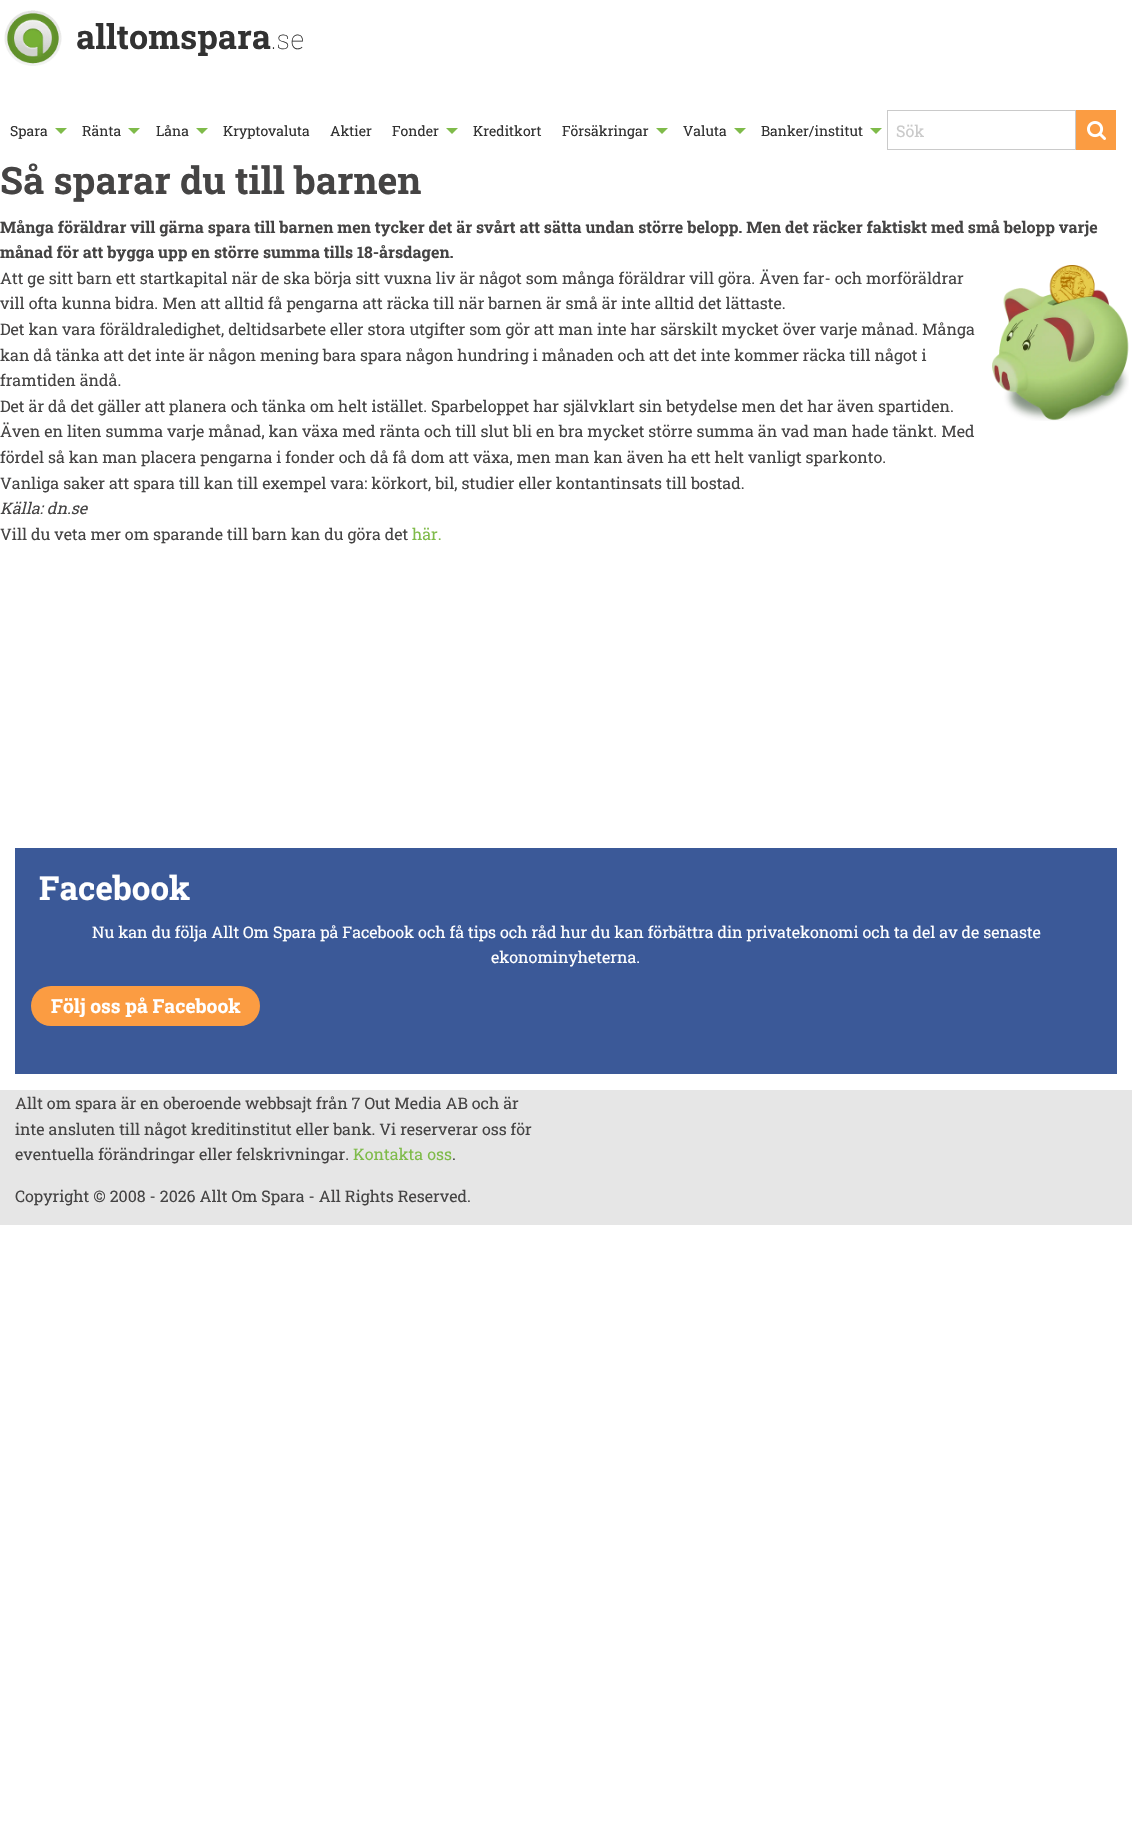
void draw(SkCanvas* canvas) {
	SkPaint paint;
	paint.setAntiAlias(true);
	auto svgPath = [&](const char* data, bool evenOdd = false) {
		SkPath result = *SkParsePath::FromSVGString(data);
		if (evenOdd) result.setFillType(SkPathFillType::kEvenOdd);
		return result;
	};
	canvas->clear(0xffffffff);
	canvas->drawImageRect(SkImages::DeferredFromEncodedData(SkData::MakeFromFileName("img1.png")), SkRect::MakeXYWH(4, 10, 58, 56), SkSamplingOptions());
	SkFont f1(fontMgr->matchFamilyStyle("Roboto Slab", SkFontStyle::Bold()), 34);
	f1.setSubpixel(true);
	paint.setColor(0xff323232);
	canvas->drawString("alltomspara", 76, 49, f1, paint);
	SkFont f2(fontMgr->matchFamilyStyle("Roboto Slab", SkFontStyle(100, SkFontStyle::kNormal_Width, SkFontStyle::kUpright_Slant)), 27);
	f2.setSubpixel(true);
	canvas->drawString(".se", 271, 49, f2, paint);
	SkFont f3(fontMgr->matchFamilyStyle("Roboto Slab", SkFontStyle::Normal()), 14);
	f3.setSubpixel(true);
	canvas->drawString("Spara", 10, 136, f3, paint);
	paint.setColor(0xff7fbb4a);
	canvas->drawPath(svgPath("M55 128H67L61 134Z"), paint);
	paint.setColor(0xff323232);
	canvas->drawString("Ränta", 82, 136, f3, paint);
	paint.setColor(0xff7fbb4a);
	canvas->drawPath(svgPath("M128 128H140L134 134Z"), paint);
	paint.setColor(0xff323232);
	canvas->drawString("Låna", 156, 136, f3, paint);
	paint.setColor(0xff7fbb4a);
	canvas->drawPath(svgPath("M196 128H208L202 134Z"), paint);
	paint.setColor(0xff323232);
	canvas->drawString("Kryptovaluta", 223, 136, f3, paint);
	canvas->drawString("Aktier", 330, 136, f3, paint);
	canvas->drawString("Fonder", 392, 136, f3, paint);
	paint.setColor(0xff7fbb4a);
	canvas->drawPath(svgPath("M446 128H458L452 134Z"), paint);
	paint.setColor(0xff323232);
	canvas->drawString("Kreditkort", 473, 136, f3, paint);
	canvas->drawString("Försäkringar", 562, 136, f3, paint);
	paint.setColor(0xff7fbb4a);
	canvas->drawPath(svgPath("M656 128H668L662 134Z"), paint);
	paint.setColor(0xff323232);
	canvas->drawString("Valuta", 683, 136, f3, paint);
	paint.setColor(0xff7fbb4a);
	canvas->drawPath(svgPath("M734 128H746L740 134Z"), paint);
	paint.setColor(0xff323232);
	canvas->drawString("Banker/institut", 761, 136, f3, paint);
	paint.setColor(0xff7fbb4a);
	canvas->drawPath(svgPath("M870 128H882L876 134Z"), paint);
	paint.setStroke(true);
	paint.setStrokeWidth(1);
	paint.setColor(0xffcacaca);
	canvas->drawRect(SkRect::MakeXYWH(887.5, 110.5, 188, 39), paint);
	SkFont f4(fontMgr->matchFamilyStyle("Roboto Slab", SkFontStyle::Normal()), 16);
	f4.setSubpixel(true);
	paint.setStroke(false);
	canvas->drawString("Sök", 896, 137, f4, paint);
	paint.setColor(0xfffb9c42);
	canvas->drawRect(SkRect::MakeXYWH(1076, 110, 40, 40), paint);
	canvas->drawImageRect(SkImages::DeferredFromEncodedData(SkData::MakeFromFileName("img2.png")), SkRect::MakeXYWH(1087, 121, 19, 19), SkSamplingOptions());
	SkFont f5(fontMgr->matchFamilyStyle("Roboto Slab", SkFontStyle::Bold()), 37.75);
	f5.setSubpixel(true);
	paint.setColor(0xff454444);
	canvas->drawString("Så sparar du till barnen", 0, 194, f5, paint);
	SkFont f6(fontMgr->matchFamilyStyle("Roboto Slab", SkFontStyle::Bold()), 16);
	f6.setSubpixel(true);
	canvas->drawString("Många föräldrar vill gärna spara till barnen men tycker det är svårt att sätta undan större belopp. Men det räcker faktiskt med små belopp varje", 0, 233, f6, paint);
	canvas->drawString("månad för att bygga upp en större summa tills 18-årsdagen.", 0, 258, f6, paint);
	canvas->drawString("Att ge sitt barn ett startkapital när de ska börja sitt vuxna liv är något som många föräldrar vill göra. Även far- och morföräldrar", 0, 284, f4, paint);
	canvas->drawImageRect(SkImages::DeferredFromEncodedData(SkData::MakeFromFileName("img3.png")), SkRect::MakeXYWH(992, 265, 137, 156), SkSamplingOptions());
	canvas->drawString("vill ofta kunna bidra. Men att alltid få pengarna att räcka till när barnen är små är inte alltid det lättaste.", 0, 309, f4, paint);
	canvas->drawString("Det kan vara föräldraledighet, deltidsarbete eller stora utgifter som gör att man inte har särskilt mycket över varje månad. Många", 0, 335, f4, paint);
	canvas->drawString("kan då tänka att det inte är någon mening bara spara någon hundring i månaden och att det inte kommer räcka till något i", 0, 361, f4, paint);
	canvas->drawString("framtiden ändå.", 0, 386, f4, paint);
	canvas->drawString("Det är då det gäller att planera och tänka om helt istället. Sparbeloppet har självklart sin betydelse men det har även spartiden.", 0, 412, f4, paint);
	canvas->drawString("Även en liten summa varje månad, kan växa med ränta och till slut bli en bra mycket större summa än vad man hade tänkt. Med", 0, 437, f4, paint);
	canvas->drawString("fördel så kan man placera pengarna i fonder och då få dom att växa, men man kan även ha ett helt vanligt sparkonto.", 0, 463, f4, paint);
	canvas->drawString("Vanliga saker att spara till kan till exempel vara: körkort, bil, studier eller kontantinsats till bostad.", 0, 489, f4, paint);
	SkFont f7(fontMgr->matchFamilyStyle("Roboto Slab", SkFontStyle::Italic()), 16);
	f7.setSubpixel(true);
	canvas->drawString("Källa: dn.se", 0, 514, f7, paint);
	canvas->drawString("Vill du veta mer om sparande till barn kan du göra det", 0, 540, f4, paint);
	paint.setColor(0xff7fbb4a);
	canvas->drawString("här.", 412, 540, f4, paint);
	paint.setColor(0xff3b5998);
	canvas->drawRect(SkRect::MakeXYWH(15, 848, 1102, 226), paint);
	SkFont f8(fontMgr->matchFamilyStyle("Roboto Slab", SkFontStyle::Bold()), 33);
	f8.setSubpixel(true);
	paint.setColor(0xffffffff);
	canvas->drawString("Facebook", 39, 900, f8, paint);
	canvas->drawString("Nu kan du följa Allt Om Spara på Facebook och få tips och råd hur du kan förbättra din privatekonomi och ta del av de senaste", 92, 938, f4, paint);
	canvas->drawString("ekonominyheterna.", 491, 963, f4, paint);
	paint.setColor(0xfffb9c42);
	canvas->drawRoundRect(SkRect::MakeXYWH(31, 986, 229, 40), 20, 20, paint);
	SkFont f9(fontMgr->matchFamilyStyle("Roboto Slab", SkFontStyle::Bold()), 19.25);
	f9.setSubpixel(true);
	paint.setColor(0xffffffff);
	canvas->drawString("Följ oss på Facebook", 51, 1013, f9, paint);
	paint.setColor(0xffe6e6e6);
	canvas->drawRect(SkRect::MakeXYWH(0, 1090, 1132, 135), paint);
	paint.setColor(0xff454444);
	canvas->drawString("Allt om spara är en oberoende webbsajt från 7 Out Media AB och är", 15, 1109, f4, paint);
	canvas->drawString("inte ansluten till något kreditinstitut eller bank. Vi reserverar oss för", 15, 1135, f4, paint);
	canvas->drawString("eventuella förändringar eller felskrivningar.", 15, 1160, f4, paint);
	paint.setColor(0xff7fbb4a);
	canvas->drawString("Kontakta oss", 353, 1160, f4, paint);
	paint.setColor(0xff454444);
	canvas->drawString(".", 452, 1160, f4, paint);
	canvas->drawString("Copyright © 2008 - 2026 Allt Om Spara - All Rights Reserved.", 15, 1202, f4, paint);
}
